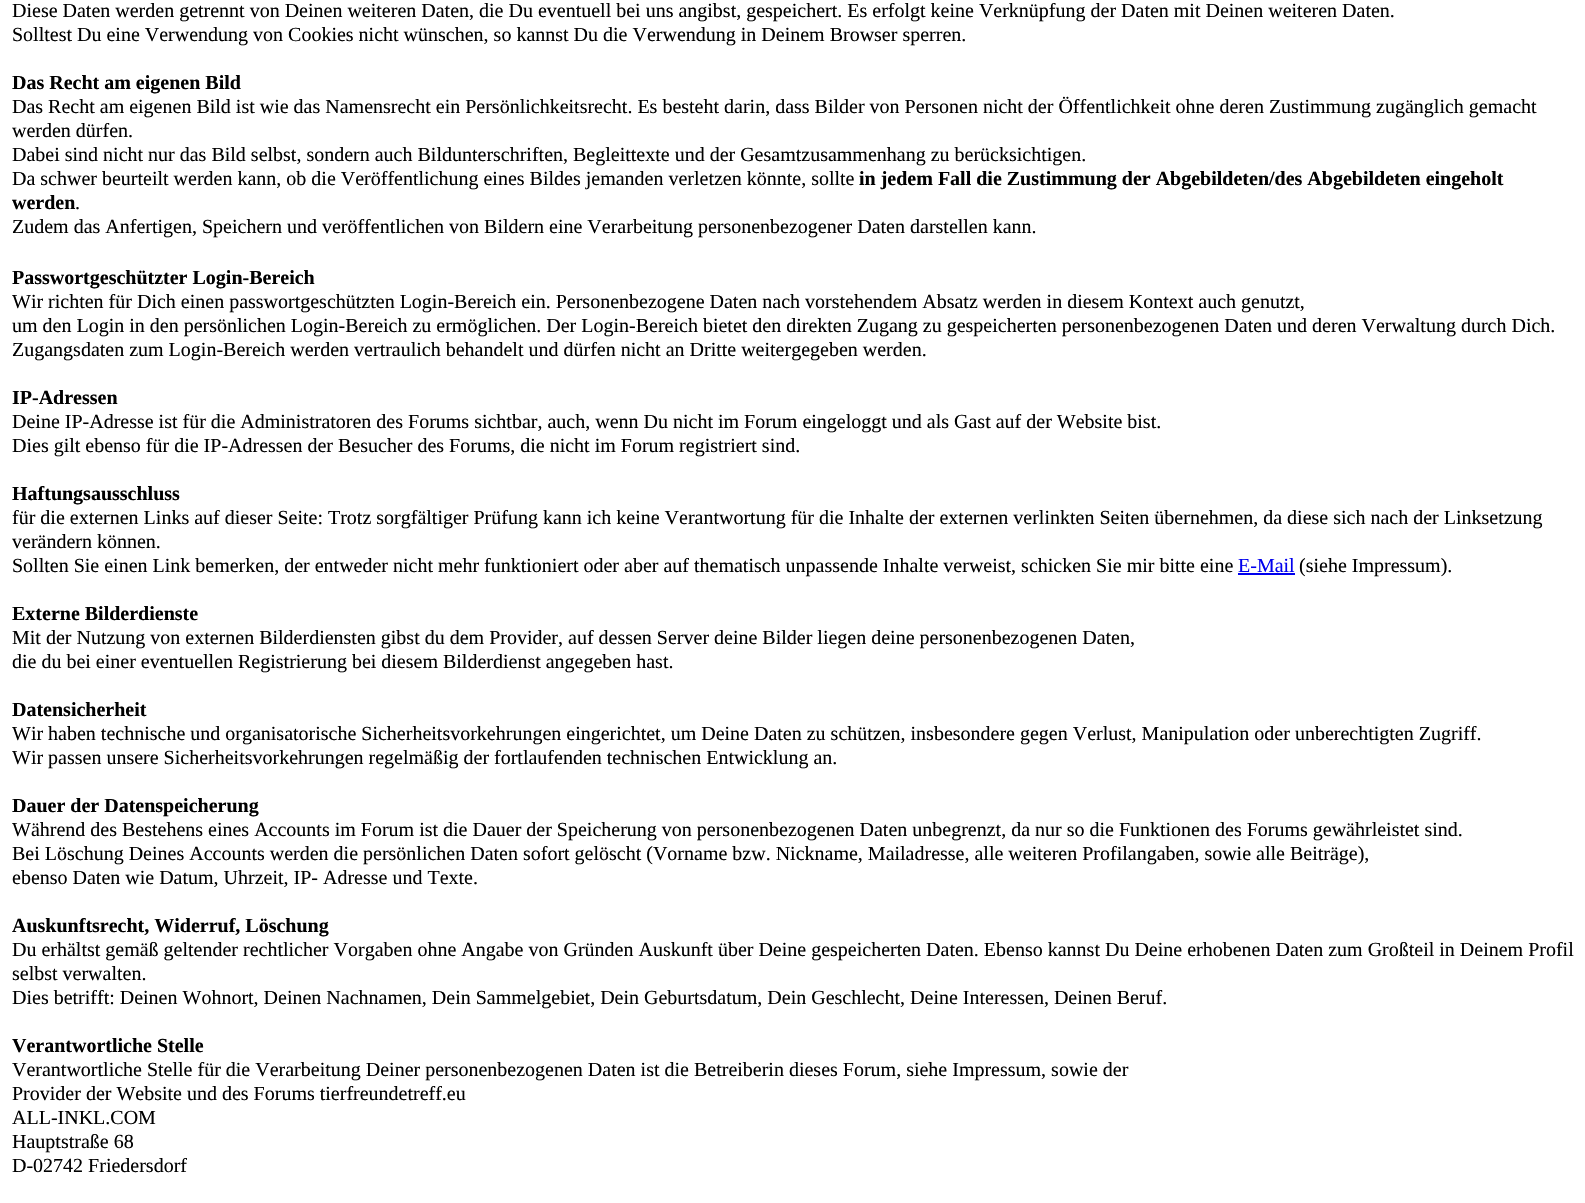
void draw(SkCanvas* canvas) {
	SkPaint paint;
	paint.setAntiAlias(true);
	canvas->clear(0xffffffff);
	SkFont f1(fontMgr->matchFamilyStyle("Liberation Serif", SkFontStyle::Normal()), 20);
	f1.setSubpixel(true);
	paint.setColor(0xff000000);
	canvas->drawString("Diese Daten werden getrennt von Deinen weiteren Daten, die Du eventuell bei uns angibst, gespeichert. Es erfolgt keine Verknüpfung der Daten mit Deinen weiteren Daten.", 12, 17, f1, paint);
	canvas->drawString("Solltest Du eine Verwendung von Cookies nicht wünschen, so kannst Du die Verwendung in Deinem Browser sperren.", 12, 41, f1, paint);
	SkFont f2(fontMgr->matchFamilyStyle("Liberation Serif", SkFontStyle::Bold()), 20);
	f2.setSubpixel(true);
	canvas->drawString("Das Recht am eigenen Bild", 12, 89, f2, paint);
	canvas->drawString("Das Recht am eigenen Bild ist wie das Namensrecht ein Persönlichkeitsrecht. Es besteht darin, dass Bilder von Personen nicht der Öffentlichkeit ohne deren Zustimmung zugänglich gemacht", 12, 113, f1, paint);
	canvas->drawString("werden dürfen.", 12, 137, f1, paint);
	canvas->drawString("Dabei sind nicht nur das Bild selbst, sondern auch Bildunterschriften, Begleittexte und der Gesamtzusammenhang zu berücksichtigen.", 12, 161, f1, paint);
	canvas->drawString("Da schwer beurteilt werden kann, ob die Veröffentlichung eines Bildes jemanden verletzen könnte, sollte", 12, 185, f1, paint);
	canvas->drawString("in jedem Fall die Zustimmung der Abgebildeten/des Abgebildeten eingeholt", 859, 185, f2, paint);
	canvas->drawString("werden", 12, 209, f2, paint);
	canvas->drawString(".", 75, 209, f1, paint);
	canvas->drawString("Zudem das Anfertigen, Speichern und veröffentlichen von Bildern eine Verarbeitung personenbezogener Daten darstellen kann.", 12, 233, f1, paint);
	canvas->drawString("Passwortgeschützter Login-Bereich", 12, 284, f2, paint);
	canvas->drawString("Wir richten für Dich einen passwortgeschützten Login-Bereich ein. Personenbezogene Daten nach vorstehendem Absatz werden in diesem Kontext auch genutzt,", 12, 308, f1, paint);
	canvas->drawString("um den Login in den persönlichen Login-Bereich zu ermöglichen. Der Login-Bereich bietet den direkten Zugang zu gespeicherten personenbezogenen Daten und deren Verwaltung durch Dich.", 12, 332, f1, paint);
	canvas->drawString("Zugangsdaten zum Login-Bereich werden vertraulich behandelt und dürfen nicht an Dritte weitergegeben werden.", 12, 356, f1, paint);
	canvas->drawString("IP-Adressen", 12, 404, f2, paint);
	canvas->drawString("Deine IP-Adresse ist für die Administratoren des Forums sichtbar, auch, wenn Du nicht im Forum eingeloggt und als Gast auf der Website bist.", 12, 428, f1, paint);
	canvas->drawString("Dies gilt ebenso für die IP-Adressen der Besucher des Forums, die nicht im Forum registriert sind.", 12, 452, f1, paint);
	canvas->drawString("Haftungsausschluss", 12, 500, f2, paint);
	canvas->drawString("für die externen Links auf dieser Seite: Trotz sorgfältiger Prüfung kann ich keine Verantwortung für die Inhalte der externen verlinkten Seiten übernehmen, da diese sich nach der Linksetzung", 12, 524, f1, paint);
	canvas->drawString("verändern können.", 12, 548, f1, paint);
	canvas->drawString("Sollten Sie einen Link bemerken, der entweder nicht mehr funktioniert oder aber auf thematisch unpassende Inhalte verweist, schicken Sie mir bitte eine", 12, 572, f1, paint);
	paint.setColor(0xff0000ee);
	canvas->drawString("E-Mail", 1238, 572, f1, paint);
	canvas->drawRect(SkRect::MakeXYWH(1238, 573, 57, 2), paint);
	paint.setColor(0xff000000);
	canvas->drawString("(siehe Impressum).", 1299, 572, f1, paint);
	canvas->drawString("Externe Bilderdienste", 12, 620, f2, paint);
	canvas->drawString("Mit der Nutzung von externen Bilderdiensten gibst du dem Provider, auf dessen Server deine Bilder liegen deine personenbezogenen Daten,", 12, 644, f1, paint);
	canvas->drawString("die du bei einer eventuellen Registrierung bei diesem Bilderdienst angegeben hast.", 12, 668, f1, paint);
	canvas->drawString("Datensicherheit", 12, 716, f2, paint);
	canvas->drawString("Wir haben technische und organisatorische Sicherheitsvorkehrungen eingerichtet, um Deine Daten zu schützen, insbesondere gegen Verlust, Manipulation oder unberechtigten Zugriff.", 12, 740, f1, paint);
	canvas->drawString("Wir passen unsere Sicherheitsvorkehrungen regelmäßig der fortlaufenden technischen Entwicklung an.", 12, 764, f1, paint);
	canvas->drawString("Dauer der Datenspeicherung", 12, 812, f2, paint);
	canvas->drawString("Während des Bestehens eines Accounts im Forum ist die Dauer der Speicherung von personenbezogenen Daten unbegrenzt, da nur so die Funktionen des Forums gewährleistet sind.", 12, 836, f1, paint);
	canvas->drawString("Bei Löschung Deines Accounts werden die persönlichen Daten sofort gelöscht (Vorname bzw. Nickname, Mailadresse, alle weiteren Profilangaben, sowie alle Beiträge),", 12, 860, f1, paint);
	canvas->drawString("ebenso Daten wie Datum, Uhrzeit, IP- Adresse und Texte.", 12, 884, f1, paint);
	canvas->drawString("Auskunftsrecht, Widerruf, Löschung", 12, 932, f2, paint);
	canvas->drawString("Du erhältst gemäß geltender rechtlicher Vorgaben ohne Angabe von Gründen Auskunft über Deine gespeicherten Daten. Ebenso kannst Du Deine erhobenen Daten zum Großteil in Deinem Profil", 12, 956, f1, paint);
	canvas->drawString("selbst verwalten.", 12, 980, f1, paint);
	canvas->drawString("Dies betrifft: Deinen Wohnort, Deinen Nachnamen, Dein Sammelgebiet, Dein Geburtsdatum, Dein Geschlecht, Deine Interessen, Deinen Beruf.", 12, 1004, f1, paint);
	canvas->drawString("Verantwortliche Stelle", 12, 1052, f2, paint);
	canvas->drawString("Verantwortliche Stelle für die Verarbeitung Deiner personenbezogenen Daten ist die Betreiberin dieses Forum, siehe Impressum, sowie der", 12, 1076, f1, paint);
	canvas->drawString("Provider der Website und des Forums tierfreundetreff.eu", 12, 1100, f1, paint);
	canvas->drawString("ALL-INKL.COM", 12, 1124, f1, paint);
	canvas->drawString("Hauptstraße 68", 12, 1148, f1, paint);
	canvas->drawString("D-02742 Friedersdorf", 12, 1172, f1, paint);
}
